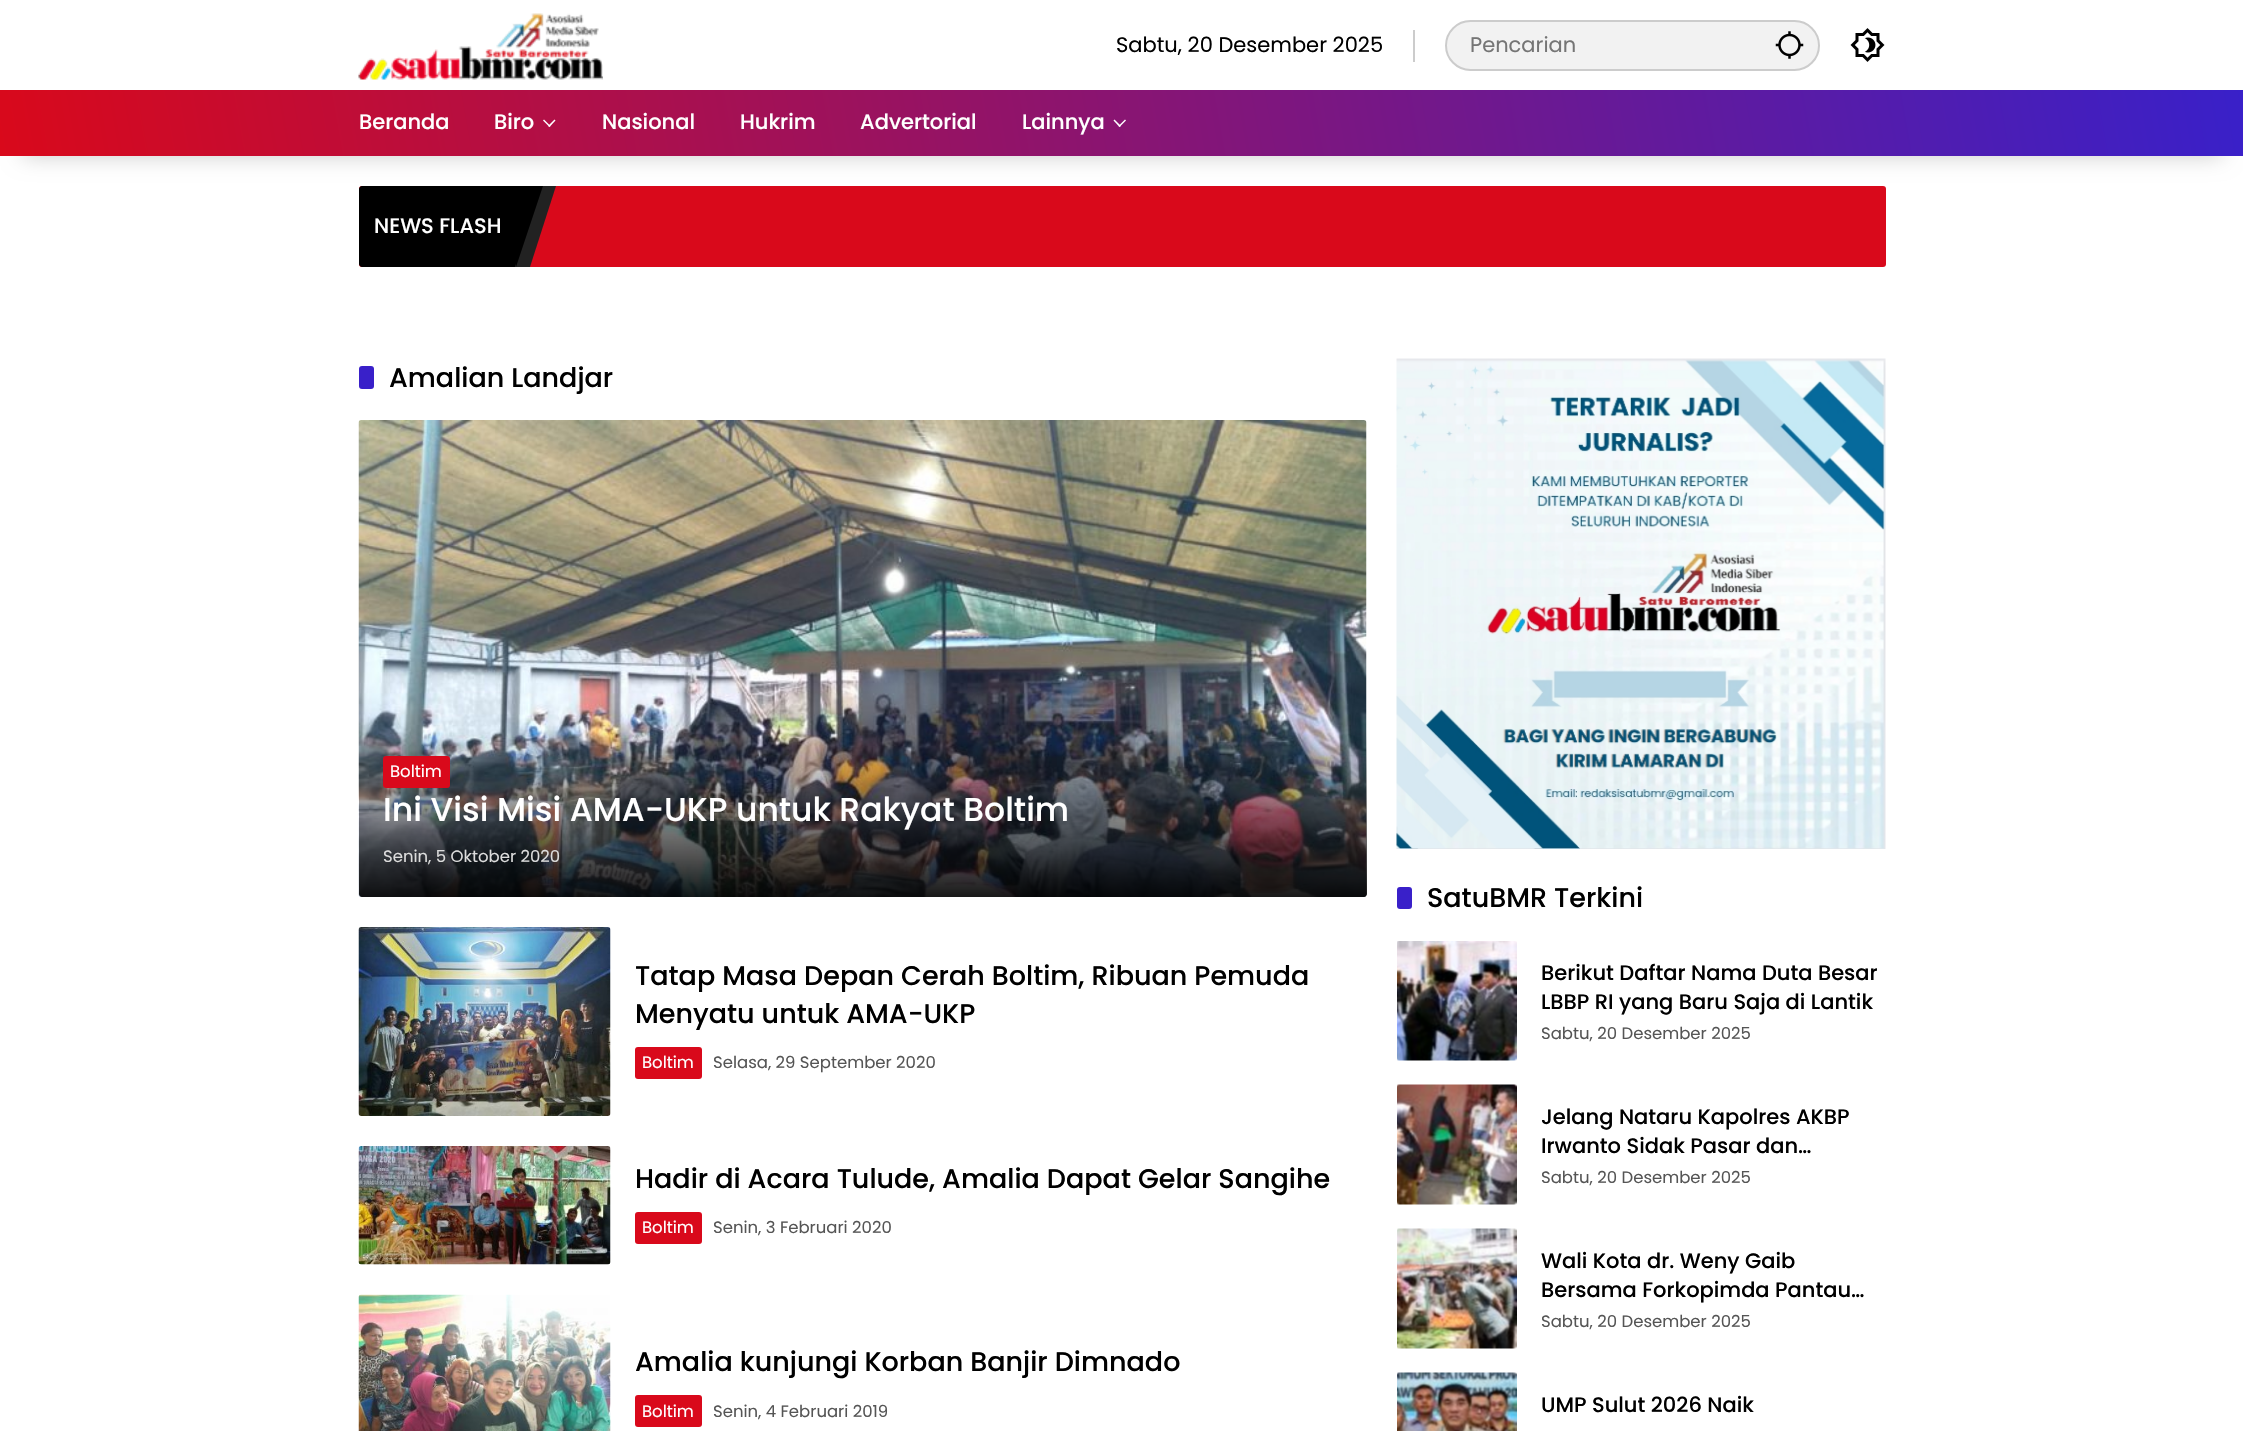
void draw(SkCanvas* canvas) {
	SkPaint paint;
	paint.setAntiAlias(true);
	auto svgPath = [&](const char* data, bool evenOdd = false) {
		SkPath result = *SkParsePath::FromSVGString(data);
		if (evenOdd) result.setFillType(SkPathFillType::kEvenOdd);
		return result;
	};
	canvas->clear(0xffffffff);
	canvas->drawImageRect(SkImages::DeferredFromEncodedData(SkData::MakeFromFileName("img1.png")), SkRect::MakeXYWH(358, 13, 245, 67), SkSamplingOptions());
	paint.setColor(0xffcccccc);
	canvas->drawRect(SkRect::MakeXYWH(1413, 30, 2, 32), paint);
	SkFont f1(fontMgr->matchFamilyStyle("Poppins", SkFontStyle::Normal()), 21);
	f1.setSubpixel(true);
	paint.setColor(0xff000000);
	canvas->drawString("Sabtu, 20 Desember 2025", 1116, 52, f1, paint);
	paint.setColor(0xfff2f2f2);
	canvas->drawRoundRect(SkRect::MakeXYWH(1446, 21, 373, 49), 24.5, 24.5, paint);
	paint.setStroke(true);
	paint.setStrokeWidth(2);
	paint.setColor(0xffcccccc);
	canvas->drawRoundRect(SkRect::MakeXYWH(1446, 21, 373, 49), 24.5, 24.5, paint);
	paint.setStroke(false);
	paint.setColor(0xff757575);
	canvas->drawString("Pencarian", 1470, 52, f1, paint);
	canvas->drawImageRect(SkImages::DeferredFromEncodedData(SkData::MakeFromFileName("img2.png")), SkRect::MakeXYWH(1775, 31, 29, 28), SkSamplingOptions());
	canvas->drawImageRect(SkImages::DeferredFromEncodedData(SkData::MakeFromFileName("img3.png")), SkRect::MakeXYWH(1850, 28, 35, 34), SkSamplingOptions());
	paint.setColor(0xffd9091b);
	canvas->drawRoundRect(SkRect::MakeXYWH(359, 186, 1527, 81), 3, 3, paint);
	paint.setColor(0xff000000);
	canvas->drawPath(svgPath("M362 186H516V267H362C360.5 267 359 265.5 359 264V189C359 187.5 360.5 186 362 186Z"), paint);
	paint.setColor(0xff222222);
	canvas->drawPath(svgPath("M541 186H556L530 267H515Z"), paint);
	paint.setColor(0xff000000);
	canvas->drawPath(svgPath("M516 186H543L516 267Z"), paint);
	paint.setColor(0x33000000);
	paint.setMaskFilter(SkMaskFilter::MakeBlur(kNormal_SkBlurStyle, 11));
	canvas->drawRect(SkRect::MakeXYWH(23, 135, 2199, 21), paint);
	paint.setMaskFilter(nullptr);
	{
		const SkColor colors[] = {0xffd9091b, 0xff3920c9};
		const float stops[] = {0, 1};
		const SkPoint ends[] = {{28, 316}, {2216, -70}};
		paint.setShader(SkGradientShader::MakeLinear(ends, colors, stops, 2, SkTileMode::kClamp));
		paint.setAlpha(255);
	}
	canvas->drawRect(SkRect::MakeXYWH(0, 90, 2243, 66), paint);
	SkFont f2(fontMgr->matchFamilyStyle("Poppins", SkFontStyle(500, SkFontStyle::kNormal_Width, SkFontStyle::kUpright_Slant)), 21);
	f2.setSubpixel(true);
	paint.setShader(nullptr);
	paint.setColor(0xffffffff);
	canvas->drawString("Beranda", 359, 129, f2, paint);
	canvas->drawString("Biro", 494, 129, f2, paint);
	canvas->drawPath(svgPath("M554.5 119.5L555.5 120.5L549.5 127L548 126Z"), paint);
	canvas->drawPath(svgPath("M544 119.5L550.5 126L549.5 127L543 120.5Z"), paint);
	canvas->drawString("Nasional", 602, 129, f2, paint);
	canvas->drawString("Hukrim", 740, 129, f2, paint);
	canvas->drawString("Advertorial", 860, 129, f2, paint);
	canvas->drawString("Lainnya", 1022, 129, f2, paint);
	canvas->drawPath(svgPath("M1125 119.5L1126 120.5L1119.5 127L1118.5 126Z"), paint);
	canvas->drawPath(svgPath("M1114.5 119.5L1121 126L1119.5 127L1113.5 120.5Z"), paint);
	canvas->drawString("NEWS FLASH", 374, 233, f2, paint);
	paint.setColor(0xff3920c9);
	canvas->drawRoundRect(SkRect::MakeXYWH(359, 366, 15, 23), 3, 3, paint);
	SkFont f3(fontMgr->matchFamilyStyle("Poppins", SkFontStyle(500, SkFontStyle::kNormal_Width, SkFontStyle::kUpright_Slant)), 27);
	f3.setSubpixel(true);
	paint.setColor(0xff000000);
	canvas->drawString("Amalian Landjar", 389, 387, f3, paint);
	canvas->drawImageRect(SkImages::DeferredFromEncodedData(SkData::MakeFromFileName("img4.png")), SkRect::MakeXYWH(358, 420, 1009, 477), SkSamplingOptions());
	{
		const SkColor colors[] = {0xe6000000, 0x00000000};
		const float stops[] = {0, 1};
		const SkPoint ends[] = {{863, 897}, {863, 732}};
		paint.setShader(SkGradientShader::MakeLinear(ends, colors, stops, 2, SkTileMode::kClamp));
		paint.setAlpha(255);
	}
	canvas->drawPath(svgPath("M359 732H1367V894C1367 895.5 1365.5 897 1364 897H362C360.5 897 359 895.5 359 894Z"), paint);
	paint.setShader(nullptr);
	paint.setColor(0xffd9091b);
	canvas->drawRoundRect(SkRect::MakeXYWH(383, 756, 67, 32), 3, 3, paint);
	SkFont f4(fontMgr->matchFamilyStyle("Poppins", SkFontStyle::Normal()), 16.5);
	f4.setSubpixel(true);
	paint.setColor(0xffffffff);
	canvas->drawString("Boltim", 390, 777, f4, paint);
	SkFont f5(fontMgr->matchFamilyStyle("Poppins", SkFontStyle(500, SkFontStyle::kNormal_Width, SkFontStyle::kUpright_Slant)), 33);
	f5.setSubpixel(true);
	canvas->drawString("Ini Visi Misi AMA-UKP untuk Rakyat Boltim", 383, 821, f5, paint);
	paint.setColor(0xffdddddd);
	canvas->drawString("Senin, 5 Oktober 2020", 383, 862, f4, paint);
	canvas->drawImageRect(SkImages::DeferredFromEncodedData(SkData::MakeFromFileName("img5.png")), SkRect::MakeXYWH(358, 927, 253, 189), SkSamplingOptions());
	paint.setColor(0xff000000);
	canvas->drawString("Tatap Masa Depan Cerah Boltim, Ribuan Pemuda", 635, 985, f3, paint);
	canvas->drawString("Menyatu untuk AMA-UKP", 635, 1023, f3, paint);
	paint.setColor(0xffd9091b);
	canvas->drawRoundRect(SkRect::MakeXYWH(635, 1047, 67, 32), 3, 3, paint);
	paint.setColor(0xffffffff);
	canvas->drawString("Boltim", 642, 1068, f4, paint);
	paint.setColor(0xff555555);
	canvas->drawString("Selasa, 29 September 2020", 713, 1068, f4, paint);
	canvas->drawImageRect(SkImages::DeferredFromEncodedData(SkData::MakeFromFileName("img6.png")), SkRect::MakeXYWH(358, 1146, 253, 119), SkSamplingOptions());
	paint.setColor(0xff000000);
	canvas->drawString("Hadir di Acara Tulude, Amalia Dapat Gelar Sangihe", 635, 1188, f3, paint);
	paint.setColor(0xffd9091b);
	canvas->drawRoundRect(SkRect::MakeXYWH(635, 1212, 67, 32), 3, 3, paint);
	paint.setColor(0xffffffff);
	canvas->drawString("Boltim", 642, 1233, f4, paint);
	paint.setColor(0xff555555);
	canvas->drawString("Senin, 3 Februari 2020", 713, 1233, f4, paint);
	canvas->drawImageRect(SkImages::DeferredFromEncodedData(SkData::MakeFromFileName("img7.png")), SkRect::MakeXYWH(358, 1294, 253, 137), SkSamplingOptions());
	paint.setColor(0xff000000);
	canvas->drawString("Amalia kunjungi Korban Banjir Dimnado", 635, 1371, f3, paint);
	paint.setColor(0xffd9091b);
	canvas->drawRoundRect(SkRect::MakeXYWH(635, 1395, 67, 32), 3, 3, paint);
	paint.setColor(0xffffffff);
	canvas->drawString("Boltim", 642, 1417, f4, paint);
	paint.setColor(0xff555555);
	canvas->drawString("Senin, 4 Februari 2019", 713, 1417, f4, paint);
	canvas->drawImageRect(SkImages::DeferredFromEncodedData(SkData::MakeFromFileName("img8.png")), SkRect::MakeXYWH(1396, 358, 490, 491), SkSamplingOptions());
	paint.setColor(0xff3920c9);
	canvas->drawRoundRect(SkRect::MakeXYWH(1397, 887, 15, 22), 3, 3, paint);
	paint.setColor(0xff000000);
	canvas->drawString("SatuBMR Terkini", 1427, 907, f3, paint);
	canvas->drawImageRect(SkImages::DeferredFromEncodedData(SkData::MakeFromFileName("img9.png")), SkRect::MakeXYWH(1397, 941, 120, 120), SkSamplingOptions());
	canvas->drawString("Berikut Daftar Nama Duta Besar", 1541, 980, f2, paint);
	canvas->drawString("LBBP RI yang Baru Saja di Lantik", 1541, 1009, f2, paint);
	paint.setColor(0xff555555);
	canvas->drawString("Sabtu, 20 Desember 2025", 1541, 1039, f4, paint);
	canvas->drawImageRect(SkImages::DeferredFromEncodedData(SkData::MakeFromFileName("img10.png")), SkRect::MakeXYWH(1397, 1084, 120, 121), SkSamplingOptions());
	paint.setColor(0xff000000);
	canvas->drawString("Jelang Nataru Kapolres AKBP", 1541, 1124, f2, paint);
	canvas->drawString("Irwanto Sidak Pasar dan…", 1541, 1153, f2, paint);
	paint.setColor(0xff555555);
	canvas->drawString("Sabtu, 20 Desember 2025", 1541, 1183, f4, paint);
	canvas->drawImageRect(SkImages::DeferredFromEncodedData(SkData::MakeFromFileName("img11.png")), SkRect::MakeXYWH(1397, 1228, 120, 121), SkSamplingOptions());
	paint.setColor(0xff000000);
	canvas->drawString("Wali Kota dr. Weny Gaib", 1541, 1268, f2, paint);
	canvas->drawString("Bersama Forkopimda Pantau…", 1541, 1297, f2, paint);
	paint.setColor(0xff555555);
	canvas->drawString("Sabtu, 20 Desember 2025", 1541, 1327, f4, paint);
	canvas->drawImageRect(SkImages::DeferredFromEncodedData(SkData::MakeFromFileName("img12.png")), SkRect::MakeXYWH(1397, 1372, 120, 59), SkSamplingOptions());
	paint.setColor(0xff000000);
	canvas->drawString("UMP Sulut 2026 Naik", 1541, 1412, f2, paint);
}
